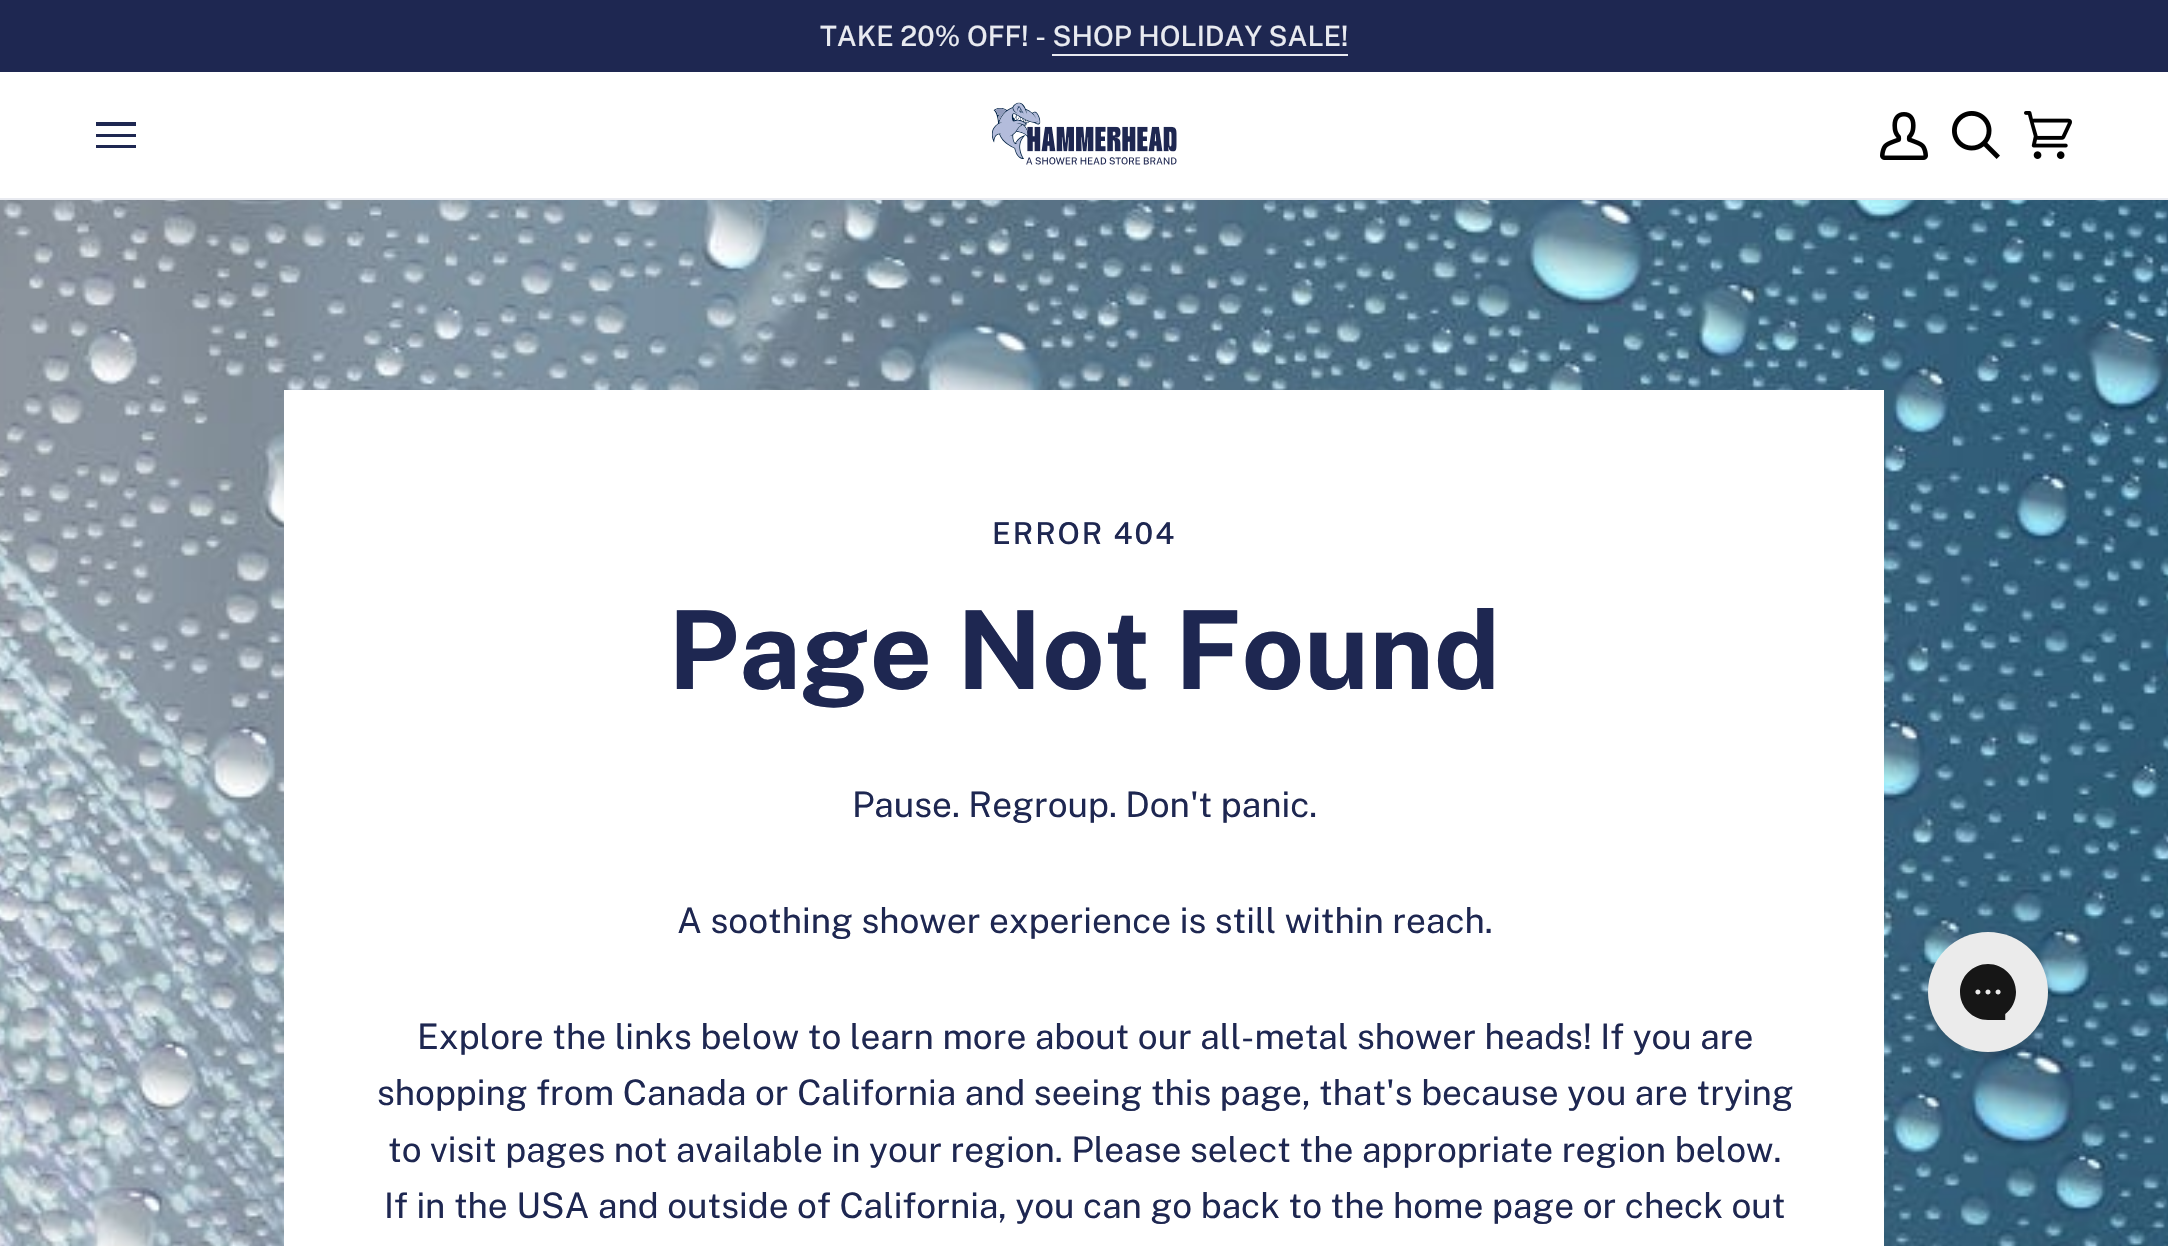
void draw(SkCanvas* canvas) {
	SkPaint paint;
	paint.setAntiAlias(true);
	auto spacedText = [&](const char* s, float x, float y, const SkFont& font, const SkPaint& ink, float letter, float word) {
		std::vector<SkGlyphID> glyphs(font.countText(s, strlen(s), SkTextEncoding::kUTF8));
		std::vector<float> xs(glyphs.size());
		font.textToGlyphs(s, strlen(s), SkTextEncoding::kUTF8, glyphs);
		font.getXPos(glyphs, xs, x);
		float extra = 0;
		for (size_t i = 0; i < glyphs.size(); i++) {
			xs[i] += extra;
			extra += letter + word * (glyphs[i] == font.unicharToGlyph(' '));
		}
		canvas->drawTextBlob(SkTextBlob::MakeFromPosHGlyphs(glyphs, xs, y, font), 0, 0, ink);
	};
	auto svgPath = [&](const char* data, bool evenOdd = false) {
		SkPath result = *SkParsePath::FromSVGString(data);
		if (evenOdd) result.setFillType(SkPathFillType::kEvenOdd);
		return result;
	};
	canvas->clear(0xffffffff);
	paint.setColor(0xff1e2751);
	canvas->drawRect(SkRect::MakeXYWH(0, 0, 2168, 72), paint);
	SkFont f1(fontMgr->matchFamilyStyle("Public Sans", SkFontStyle(500, SkFontStyle::kNormal_Width, SkFontStyle::kUpright_Slant)), 28);
	f1.setSubpixel(true);
	paint.setColor(0xffe8eaf0);
	canvas->drawString("TAKE 20% OFF! - SHOP HOLIDAY SALE!", 820, 46, f1, paint);
	canvas->drawRect(SkRect::MakeXYWH(1052, 54, 296, 2), paint);
	canvas->drawRect(SkRect::MakeXYWH(0, 198, 2168, 2), paint);
	paint.setColor(0xff1e2751);
	canvas->drawPath(svgPath("M96 122H136V126H96ZM96 134H136V137H96ZM96 145H136V148H96Z"), paint);
	canvas->drawImageRect(SkImages::DeferredFromEncodedData(SkData::MakeFromFileName("img1.png")), SkRect::MakeXYWH(991, 102, 186, 63), SkSamplingOptions());
	canvas->drawImageRect(SkImages::DeferredFromEncodedData(SkData::MakeFromFileName("img2.png")), SkRect::MakeXYWH(1880, 112, 48, 48), SkSamplingOptions());
	canvas->drawImageRect(SkImages::DeferredFromEncodedData(SkData::MakeFromFileName("img3.png")), SkRect::MakeXYWH(1952, 111, 48, 48), SkSamplingOptions());
	canvas->drawImageRect(SkImages::DeferredFromEncodedData(SkData::MakeFromFileName("img4.png")), SkRect::MakeXYWH(2024, 111, 48, 48), SkSamplingOptions());
	canvas->drawImageRect(SkImages::DeferredFromEncodedData(SkData::MakeFromFileName("img5.png")), SkRect::MakeXYWH(0, 200, 2168, 1046), SkSamplingOptions());
	paint.setColor(0xffffffff);
	canvas->drawRect(SkRect::MakeXYWH(284, 390, 1600, 856), paint);
	SkFont f2(fontMgr->matchFamilyStyle("Public Sans", SkFontStyle(500, SkFontStyle::kNormal_Width, SkFontStyle::kUpright_Slant)), 30);
	f2.setSubpixel(true);
	paint.setColor(0xff1e2751);
	spacedText("ERROR 404", 992, 544, f2, paint, 2, 0);
	SkFont f3(fontMgr->matchFamilyStyle("Public Sans", SkFontStyle::Bold()), 109);
	f3.setSubpixel(true);
	canvas->drawString("Page Not Found", 668, 689, f3, paint);
	SkFont f4(fontMgr->matchFamilyStyle("Public Sans", SkFontStyle::Normal()), 35.15);
	f4.setSubpixel(true);
	canvas->drawString("Pause. Regroup. Don't panic.", 852, 817, f4, paint);
	canvas->drawString("A soothing shower experience is still within reach.", 677, 933, f4, paint);
	canvas->drawString("Explore the links below to learn more about our all-metal shower heads! If you are", 417, 1049, f4, paint);
	canvas->drawString("shopping from Canada or California and seeing this page, that's because you are trying", 377, 1105, f4, paint);
	canvas->drawString("to visit pages not available in your region. Please select the appropriate region below.", 388, 1162, f4, paint);
	canvas->drawString("If in the USA and outside of California, you can go back to the home page or check out", 384, 1218, f4, paint);
	canvas->drawImageRect(SkImages::DeferredFromEncodedData(SkData::MakeFromFileName("img6.png")), SkRect::MakeXYWH(1924, 932, 128, 127), SkSamplingOptions());
}
